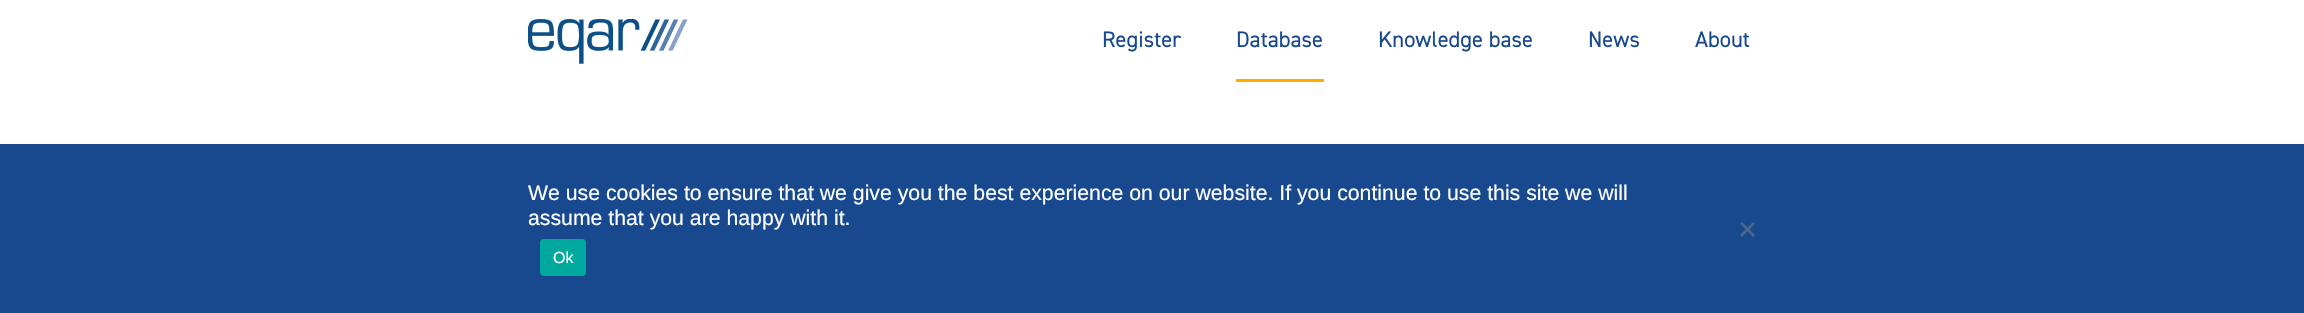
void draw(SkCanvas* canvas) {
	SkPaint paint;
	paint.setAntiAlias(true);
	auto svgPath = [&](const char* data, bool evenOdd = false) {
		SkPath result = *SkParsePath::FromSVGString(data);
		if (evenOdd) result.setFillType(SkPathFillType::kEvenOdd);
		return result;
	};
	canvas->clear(0xffffffff);
	canvas->drawImageRect(SkImages::DeferredFromEncodedData(SkData::MakeFromFileName("img1.png")), SkRect::MakeXYWH(528, 19, 160, 45), SkSamplingOptions());
	SkFont f1(fontMgr->matchFamilyStyle("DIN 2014", SkFontStyle::Normal()), 22.5);
	f1.setSubpixel(true);
	paint.setColor(0xff18498f);
	canvas->drawString("Register", 1102, 47, f1, paint);
	canvas->drawString("Database", 1236, 47, f1, paint);
	paint.setColor(0xffffab00);
	canvas->drawRect(SkRect::MakeXYWH(1236, 79, 88, 3), paint);
	paint.setColor(0xff18498f);
	canvas->drawString("Knowledge base", 1378, 47, f1, paint);
	canvas->drawString("News", 1588, 47, f1, paint);
	canvas->drawString("About", 1695, 47, f1, paint);
	canvas->drawRect(SkRect::MakeXYWH(0, 144, 2304, 169), paint);
	SkFont f2(fontMgr->matchFamilyStyle("Liberation Sans", SkFontStyle::Normal()), 21.25);
	f2.setSubpixel(true);
	paint.setColor(0xffffffff);
	canvas->drawString("We use cookies to ensure that we give you the best experience on our website. If you continue to use this site we will", 528, 200, f2, paint);
	canvas->drawString("assume that you are happy with it.", 528, 225, f2, paint);
	paint.setColor(0xff4c6588);
	canvas->drawPath(svgPath("M1753 222L1755 223.5L1742 237L1740 235Z"), paint);
	canvas->drawPath(svgPath("M1740 223.5L1742 222L1755 235L1753 237Z"), paint);
	paint.setColor(0xff00a99d);
	canvas->drawRoundRect(SkRect::MakeXYWH(540, 239, 46, 37), 4, 4, paint);
	SkFont f3(fontMgr->matchFamilyStyle("Liberation Sans", SkFontStyle::Normal()), 16);
	f3.setSubpixel(true);
	paint.setColor(0xffffffff);
	canvas->drawString("Ok", 553, 263, f3, paint);
}
